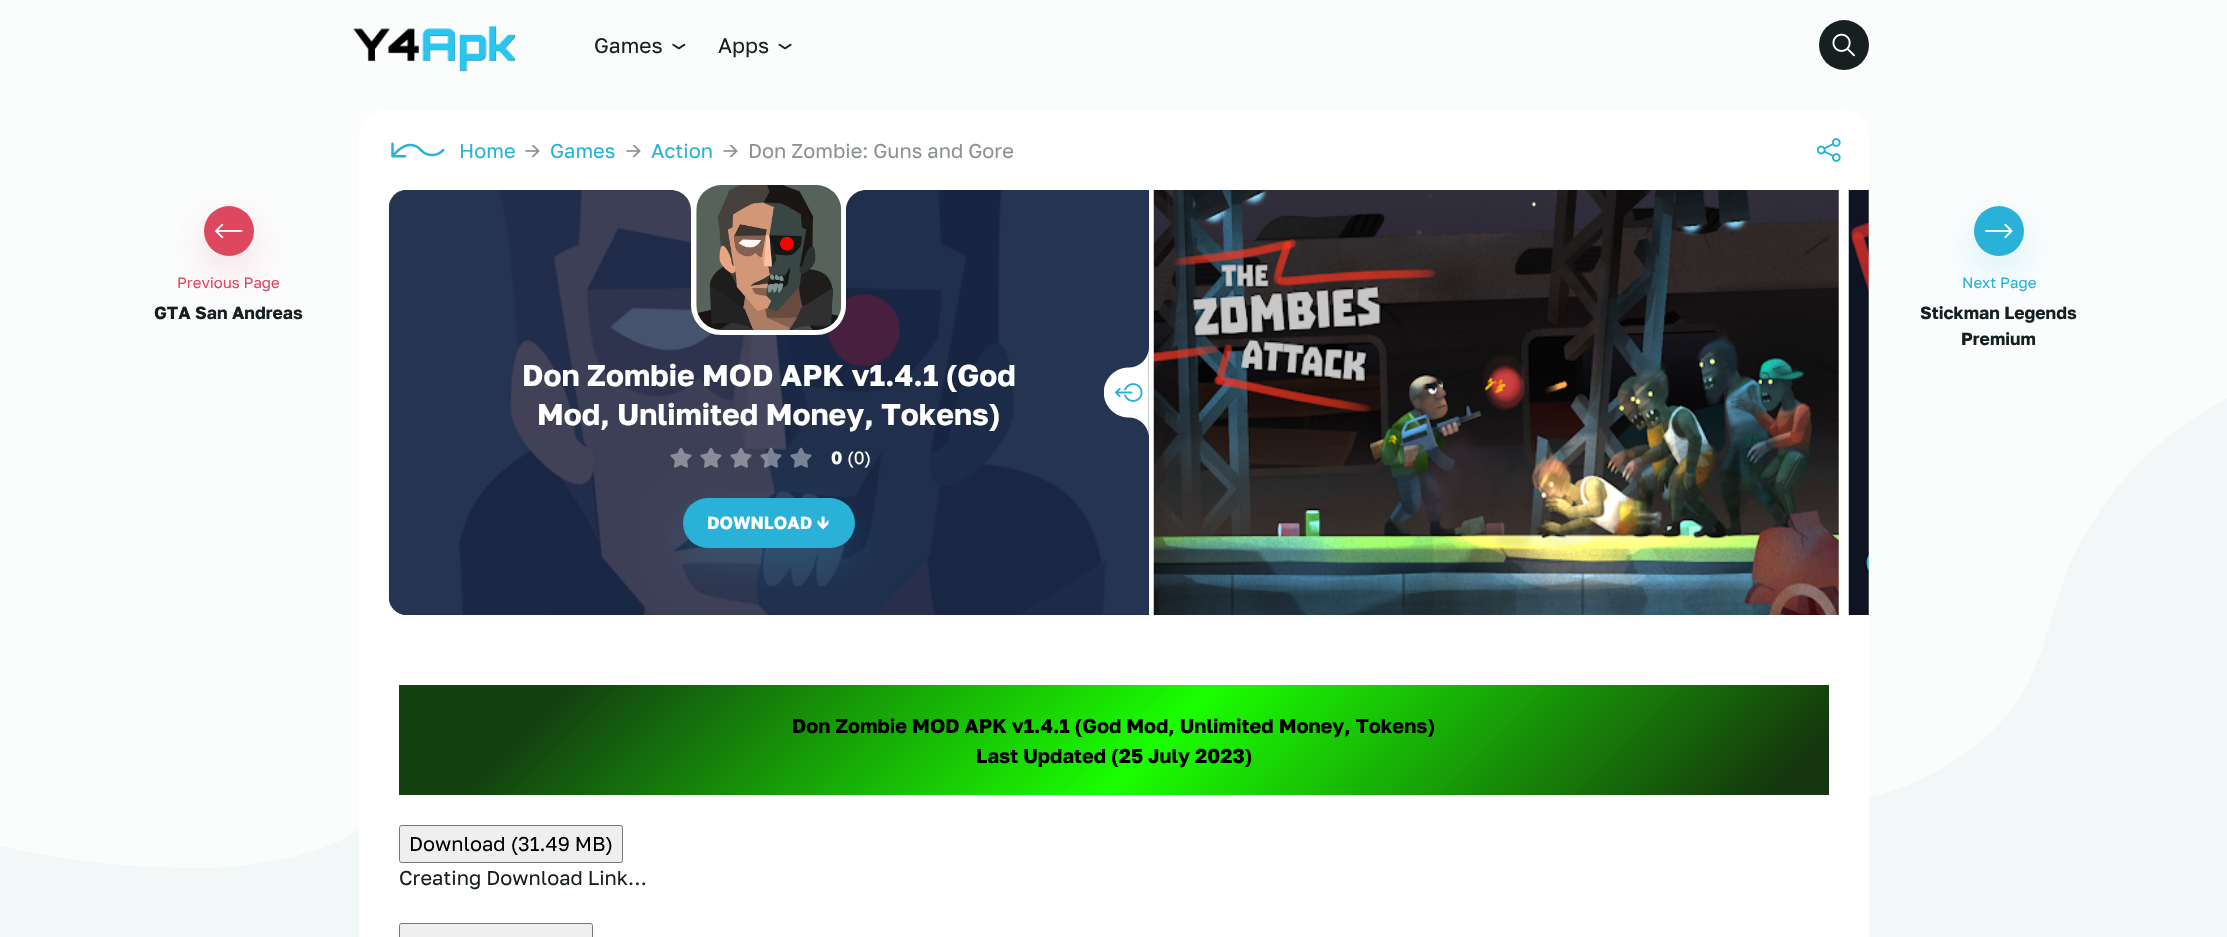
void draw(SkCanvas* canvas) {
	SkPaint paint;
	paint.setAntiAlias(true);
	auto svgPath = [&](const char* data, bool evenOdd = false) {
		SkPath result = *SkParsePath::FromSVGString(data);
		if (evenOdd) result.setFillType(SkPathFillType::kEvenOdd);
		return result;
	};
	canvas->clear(0xfff2f7f8);
	canvas->drawImageRect(SkImages::DeferredFromEncodedData(SkData::MakeFromFileName("img1.png")), SkRect::MakeXYWH(0, 0, 2227, 873), SkSamplingOptions());
	canvas->drawImageRect(SkImages::DeferredFromEncodedData(SkData::MakeFromFileName("img2.png")), SkRect::MakeXYWH(353, 25, 163, 47), SkSamplingOptions());
	SkFont f1(fontMgr->matchFamilyStyle("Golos", SkFontStyle::Normal()), 21);
	f1.setSubpixel(true);
	paint.setColor(0xff172021);
	canvas->drawString("Games", 594, 53, f1, paint);
	canvas->drawImageRect(SkImages::DeferredFromEncodedData(SkData::MakeFromFileName("img3.png")), SkRect::MakeXYWH(672, 43, 14, 7), SkSamplingOptions());
	canvas->drawString("Apps", 718, 53, f1, paint);
	canvas->drawImageRect(SkImages::DeferredFromEncodedData(SkData::MakeFromFileName("img4.png")), SkRect::MakeXYWH(778, 43, 14, 7), SkSamplingOptions());
	canvas->drawCircle(1844, 45, 25, paint);
	canvas->drawImageRect(SkImages::DeferredFromEncodedData(SkData::MakeFromFileName("img5.png")), SkRect::MakeXYWH(1832, 33, 23, 24), SkSamplingOptions());
	paint.setColor(0xffffffff);
	canvas->drawRoundRect(SkRect::MakeXYWH(359, 110, 1510, 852), 25, 25, paint);
	canvas->drawImageRect(SkImages::DeferredFromEncodedData(SkData::MakeFromFileName("img6.png")), SkRect::MakeXYWH(391, 142, 54, 16), SkSamplingOptions());
	SkFont f2(fontMgr->matchFamilyStyle("Golos", SkFontStyle::Normal()), 20);
	f2.setSubpixel(true);
	paint.setColor(0xff29b1d8);
	canvas->drawString("Home", 459, 158, f2, paint);
	paint.setColor(0xff8b9090);
	canvas->drawString("→", 525, 158, f2, paint);
	paint.setColor(0xff29b1d8);
	canvas->drawString("Games", 550, 158, f2, paint);
	paint.setColor(0xff8b9090);
	canvas->drawString("→", 626, 158, f2, paint);
	paint.setColor(0xff29b1d8);
	canvas->drawString("Action", 651, 158, f2, paint);
	paint.setColor(0xff8b9090);
	canvas->drawString("→  Don Zombie: Guns and Gore", 723, 158, f2, paint);
	canvas->drawImageRect(SkImages::DeferredFromEncodedData(SkData::MakeFromFileName("img7.png")), SkRect::MakeXYWH(1816, 138, 25, 24), SkSamplingOptions());
	paint.setColor(0xff2d4376);
	canvas->drawPath(svgPath("M407 190H1149V615H407C397 615 389 607 389 597V208C389 198 397 190 407 190Z"), paint);
	canvas->drawImageRect(SkImages::DeferredFromEncodedData(SkData::MakeFromFileName("img9.png")), SkRect::MakeXYWH(388, 190, 761, 425), SkSamplingOptions());
	paint.setColor(0xcc18284d);
	canvas->drawPath(svgPath("M407 190H1149V615H407C397 615 389 607 389 597V208C389 198 397 190 407 190Z"), paint);
	paint.setColor(0xffffffff);
	canvas->drawPath(svgPath("M659 185V190H671C682 190 691 199 691 210V305C691 322 705 335 721 335H816C833 335 846 322 846 305V210C846 199 855 190 866 190H879V185Z"), paint);
	canvas->drawImageRect(SkImages::DeferredFromEncodedData(SkData::MakeFromFileName("img8.png")), SkRect::MakeXYWH(696, 185, 146, 145), SkSamplingOptions());
	SkFont f3(fontMgr->matchFamilyStyle("Golos", SkFontStyle::Bold()), 30);
	f3.setSubpixel(true);
	canvas->drawString("Don Zombie MOD APK v1.4.1 (God", 522, 386, f3, paint);
	canvas->drawString("Mod, Unlimited Money, Tokens)", 537, 425, f3, paint);
	canvas->drawImageRect(SkImages::DeferredFromEncodedData(SkData::MakeFromFileName("img10.png")), SkRect::MakeXYWH(1104, 348, 45, 89), SkSamplingOptions());
	paint.setColor(0x3329b1d8);
	paint.setMaskFilter(SkMaskFilter::MakeBlur(kNormal_SkBlurStyle, 20));
	canvas->drawRoundRect(SkRect::MakeXYWH(683, 513, 172, 50), 25, 25, paint);
	paint.setMaskFilter(nullptr);
	canvas->drawImageRect(SkImages::DeferredFromEncodedData(SkData::MakeFromFileName("img11.png")), SkRect::MakeXYWH(670, 447, 142, 21), SkSamplingOptions());
	SkFont f4(fontMgr->matchFamilyStyle("Golos", SkFontStyle::Bold()), 17.5);
	f4.setSubpixel(true);
	paint.setColor(0xffffffff);
	canvas->drawString("0", 831, 464, f4, paint);
	SkFont f5(fontMgr->matchFamilyStyle("Golos", SkFontStyle::Normal()), 17.5);
	f5.setSubpixel(true);
	canvas->drawString("(0)", 847, 464, f5, paint);
	paint.setColor(0xff29b1d8);
	canvas->drawRoundRect(SkRect::MakeXYWH(683, 498, 172, 50), 25, 25, paint);
	paint.setColor(0xffffffff);
	canvas->drawString("DOWNLOAD ↓", 707, 529, f4, paint);
	canvas->drawImageRect(SkImages::DeferredFromEncodedData(SkData::MakeFromFileName("img12.png")), SkRect::MakeXYWH(1153, 190, 686, 425), SkSamplingOptions());
	canvas->drawImageRect(SkImages::DeferredFromEncodedData(SkData::MakeFromFileName("img13.png")), SkRect::MakeXYWH(1848, 190, 21, 425), SkSamplingOptions());
	{
		const SkColor colors[] = {0xff13400f, 0xff1aff00, 0xff15360e};
		const float stops[] = {0.11, 0.53, 0.96};
		const SkPoint ends[] = {{729, 355}, {1499, 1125}};
		paint.setShader(SkGradientShader::MakeLinear(ends, colors, stops, 3, SkTileMode::kClamp));
		paint.setAlpha(255);
	}
	canvas->drawRect(SkRect::MakeXYWH(399, 685, 1430, 110), paint);
	SkFont f6(fontMgr->matchFamilyStyle("Golos", SkFontStyle::Bold()), 20);
	f6.setSubpixel(true);
	paint.setShader(nullptr);
	paint.setColor(0xff000000);
	canvas->drawString("Don Zombie MOD APK v1.4.1 (God Mod, Unlimited Money, Tokens)", 792, 733, f6, paint);
	canvas->drawString("Last Updated (25 July 2023)", 976, 763, f6, paint);
	paint.setColor(0xffefefef);
	canvas->drawRoundRect(SkRect::MakeXYWH(399.5, 825.5, 223, 37), 2, 2, paint);
	paint.setStroke(true);
	paint.setStrokeWidth(1);
	paint.setColor(0xff767676);
	canvas->drawRoundRect(SkRect::MakeXYWH(399.5, 825.5, 223, 37), 2, 2, paint);
	paint.setStroke(false);
	paint.setColor(0xff000000);
	canvas->drawString("Download (31.49 MB)", 409, 851, f2, paint);
	paint.setColor(0xff172021);
	canvas->drawString("Creating Download Link…", 399, 885, f2, paint);
	paint.setColor(0xffefefef);
	canvas->drawRoundRect(SkRect::MakeXYWH(399.5, 923.5, 193, 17), 2, 2, paint);
	paint.setStroke(true);
	paint.setColor(0xff767676);
	canvas->drawRoundRect(SkRect::MakeXYWH(399.5, 923.5, 193, 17), 2, 2, paint);
	paint.setStroke(false);
	paint.setColor(0x33de485f);
	paint.setMaskFilter(SkMaskFilter::MakeBlur(kNormal_SkBlurStyle, 20));
	canvas->drawRoundRect(SkRect::MakeXYWH(204, 221, 50, 50), 25, 25, paint);
	paint.setMaskFilter(nullptr);
	paint.setColor(0xffde485f);
	canvas->drawCircle(229, 231, 25, paint);
	canvas->drawImageRect(SkImages::DeferredFromEncodedData(SkData::MakeFromFileName("img14.png")), SkRect::MakeXYWH(215, 223, 28, 16), SkSamplingOptions());
	SkFont f7(fontMgr->matchFamilyStyle("Golos", SkFontStyle::Normal()), 15);
	f7.setSubpixel(true);
	canvas->drawString("Previous Page", 177, 288, f7, paint);
	paint.setColor(0xff172021);
	canvas->drawString("GTA San Andreas", 154, 319, f4, paint);
	paint.setColor(0x3329b1d8);
	paint.setMaskFilter(SkMaskFilter::MakeBlur(kNormal_SkBlurStyle, 20));
	canvas->drawRoundRect(SkRect::MakeXYWH(1974, 221, 50, 50), 25, 25, paint);
	paint.setMaskFilter(nullptr);
	paint.setColor(0xff29b1d8);
	canvas->drawCircle(1999, 231, 25, paint);
	canvas->drawImageRect(SkImages::DeferredFromEncodedData(SkData::MakeFromFileName("img15.png")), SkRect::MakeXYWH(1985, 223, 28, 16), SkSamplingOptions());
	canvas->drawString("Next Page", 1962, 288, f7, paint);
	paint.setColor(0xff172021);
	canvas->drawString("Stickman Legends", 1920, 319, f4, paint);
	canvas->drawString("Premium", 1961, 345, f4, paint);
}
